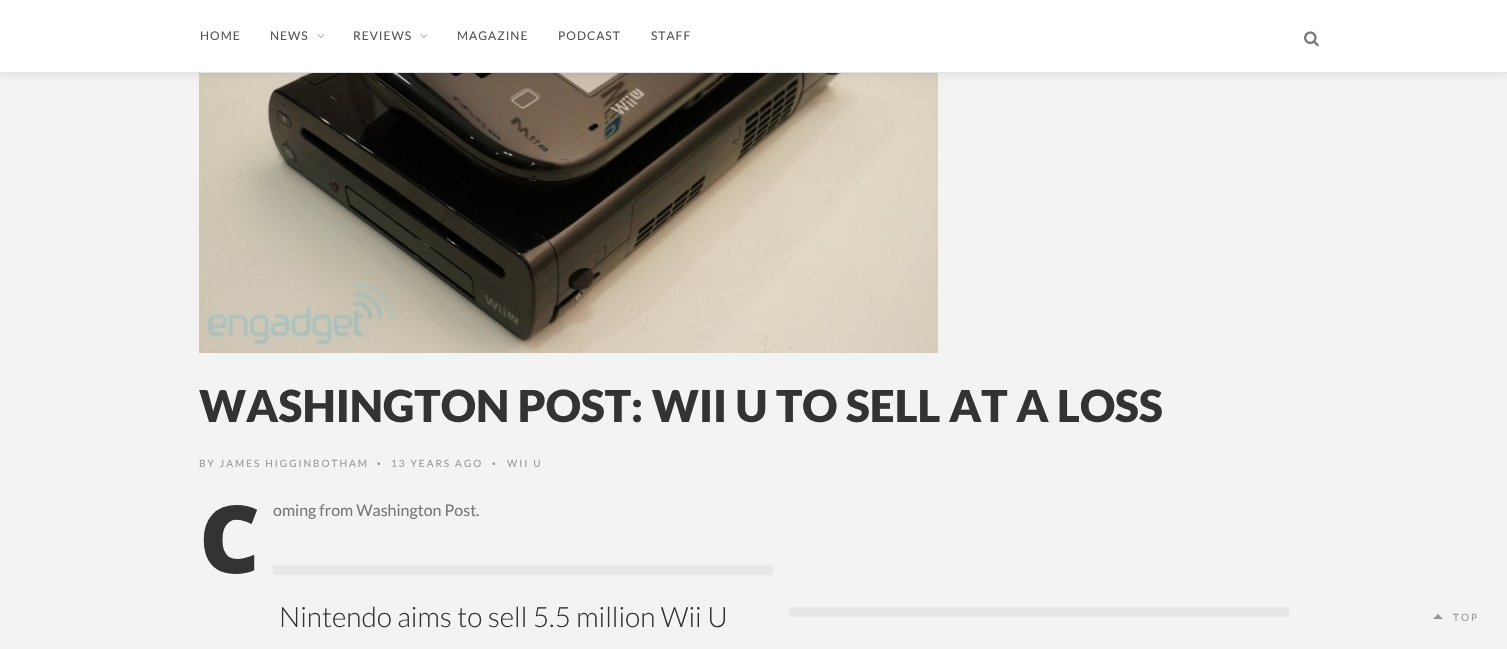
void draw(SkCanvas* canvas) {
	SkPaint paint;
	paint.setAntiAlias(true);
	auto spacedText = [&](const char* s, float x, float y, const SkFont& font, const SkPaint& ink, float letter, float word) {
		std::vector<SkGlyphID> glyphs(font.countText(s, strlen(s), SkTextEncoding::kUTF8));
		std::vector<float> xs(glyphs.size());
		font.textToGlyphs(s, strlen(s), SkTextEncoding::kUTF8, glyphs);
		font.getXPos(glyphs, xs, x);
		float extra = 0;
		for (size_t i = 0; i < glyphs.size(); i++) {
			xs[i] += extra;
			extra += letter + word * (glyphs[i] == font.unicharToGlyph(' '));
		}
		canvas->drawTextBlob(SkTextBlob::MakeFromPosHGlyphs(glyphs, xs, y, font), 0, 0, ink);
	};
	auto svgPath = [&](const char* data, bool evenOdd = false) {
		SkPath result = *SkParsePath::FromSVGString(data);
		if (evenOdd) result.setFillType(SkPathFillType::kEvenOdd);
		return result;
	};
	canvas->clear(0xfff3f3f3);
	canvas->drawImageRect(SkImages::DeferredFromEncodedData(SkData::MakeFromFileName("img3.png")), SkRect::MakeXYWH(199, 73, 739, 280), SkSamplingOptions());
	paint.setColor(0x1a000000);
	paint.setMaskFilter(SkMaskFilter::MakeBlur(kNormal_SkBlurStyle, 5));
	canvas->drawRect(SkRect::MakeXYWH(0, 0, 1507, 73), paint);
	paint.setMaskFilter(nullptr);
	paint.setColor(0xffffffff);
	canvas->drawRect(SkRect::MakeXYWH(0, 0, 1507, 72), paint);
	paint.setColor(0xffe3e3e3);
	canvas->drawRect(SkRect::MakeXYWH(0, 72, 1507, 1), paint);
	SkFont f1(fontMgr->matchFamilyStyle("Lato", SkFontStyle::Normal()), 12);
	f1.setSubpixel(true);
	paint.setColor(0xff555555);
	spacedText("HOME", 200, 40, f1, paint, 1, 0);
	spacedText("NEWS", 270, 40, f1, paint, 1, 0);
	canvas->drawImageRect(SkImages::DeferredFromEncodedData(SkData::MakeFromFileName("img1.png")), SkRect::MakeXYWH(317, 34, 8, 4), SkSamplingOptions());
	spacedText("REVIEWS", 353, 40, f1, paint, 1, 0);
	canvas->drawImageRect(SkImages::DeferredFromEncodedData(SkData::MakeFromFileName("img1.png")), SkRect::MakeXYWH(420, 34, 8, 4), SkSamplingOptions());
	spacedText("MAGAZINE", 457, 40, f1, paint, 1, 0);
	spacedText("PODCAST", 558, 40, f1, paint, 1, 0);
	spacedText("STAFF", 651, 40, f1, paint, 1, 0);
	canvas->drawImageRect(SkImages::DeferredFromEncodedData(SkData::MakeFromFileName("img2.png")), SkRect::MakeXYWH(1304, 31, 15, 16), SkSamplingOptions());
	SkFont f2(fontMgr->matchFamilyStyle("Lato", SkFontStyle(900, SkFontStyle::kNormal_Width, SkFontStyle::kUpright_Slant)), 44);
	f2.setSubpixel(true);
	paint.setColor(0xff333333);
	canvas->drawString("WASHINGTON POST: WII U TO SELL AT A LOSS", 199, 422, f2, paint);
	SkFont f3(fontMgr->matchFamilyStyle("Lato", SkFontStyle::Normal()), 10);
	f3.setSubpixel(true);
	paint.setColor(0xff999999);
	spacedText("BY JAMES HIGGINBOTHAM", 199, 467, f3, paint, 2, 0);
	SkFont f4(fontMgr->matchFamilyStyle("Liberation Sans", SkFontStyle::Normal()), 10);
	f4.setSubpixel(true);
	spacedText("•", 377, 467, f4, paint, 2, 0);
	spacedText("13 YEARS AGO", 391, 467, f3, paint, 2, 0);
	spacedText("•", 492, 467, f4, paint, 2, 0);
	spacedText("WII U", 507, 467, f3, paint, 2, 0);
	SkFont f5(fontMgr->matchFamilyStyle("Noto Sans", SkFontStyle(900, SkFontStyle::kNormal_Width, SkFontStyle::kUpright_Slant)), 94);
	f5.setSubpixel(true);
	paint.setColor(0xff333333);
	canvas->drawString("C", 199, 573, f5, paint);
	SkFont f6(fontMgr->matchFamilyStyle("Lato", SkFontStyle::Normal()), 16);
	f6.setSubpixel(true);
	paint.setColor(0xff777777);
	canvas->drawString("oming from Washington Post.", 273, 516, f6, paint);
	paint.setColor(0xffe7e7e7);
	canvas->drawRect(SkRect::MakeXYWH(273, 565, 500, 10), paint);
	SkFont f7(fontMgr->matchFamilyStyle("Lato", SkFontStyle(300, SkFontStyle::kNormal_Width, SkFontStyle::kUpright_Slant)), 28);
	f7.setSubpixel(true);
	paint.setColor(0xff333333);
	canvas->drawString("Nintendo aims to sell 5.5 million Wii U", 279, 627, f7, paint);
	paint.setColor(0xffe7e7e7);
	canvas->drawRect(SkRect::MakeXYWH(789, 607, 500, 10), paint);
	paint.setColor(0xff969696);
	canvas->drawPath(svgPath("M1443 619H1433L1438 614Z"), paint);
	paint.setColor(0xff999999);
	spacedText("TOP", 1453, 621, f3, paint, 2, 0);
}
